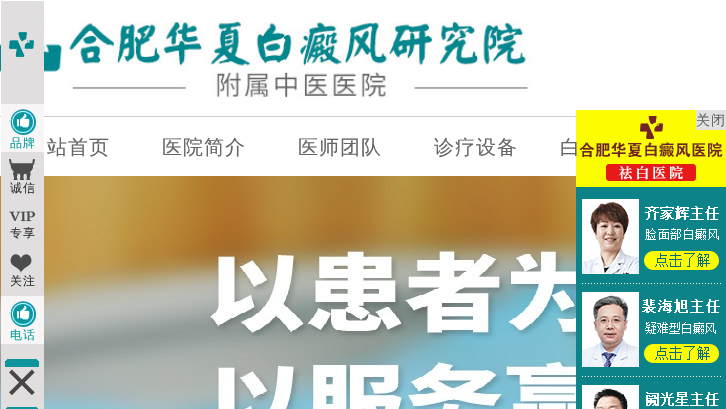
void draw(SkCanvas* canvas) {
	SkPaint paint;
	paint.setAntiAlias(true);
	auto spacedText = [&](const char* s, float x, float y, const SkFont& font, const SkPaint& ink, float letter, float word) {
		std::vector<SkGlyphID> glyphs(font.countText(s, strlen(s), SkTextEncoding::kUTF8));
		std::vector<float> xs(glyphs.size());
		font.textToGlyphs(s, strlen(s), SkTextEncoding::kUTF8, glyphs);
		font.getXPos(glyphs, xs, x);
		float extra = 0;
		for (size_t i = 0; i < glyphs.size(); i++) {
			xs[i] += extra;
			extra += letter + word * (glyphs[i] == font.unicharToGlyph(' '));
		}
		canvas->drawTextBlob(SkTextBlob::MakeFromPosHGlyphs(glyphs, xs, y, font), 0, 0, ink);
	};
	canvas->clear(0xffffffff);
	canvas->drawImageRect(SkImages::DeferredFromEncodedData(SkData::MakeFromFileName("img1.png")), SkRect::MakeXYWH(0, 14, 533, 84), SkSamplingOptions());
	canvas->drawImageRect(SkImages::DeferredFromEncodedData(SkData::MakeFromFileName("img2.png")), SkRect::MakeXYWH(576, 110, 150, 299), SkSamplingOptions());
	paint.setColor(0xffe2e2e2);
	canvas->drawRect(SkRect::MakeXYWH(696, 110, 30, 20), paint);
	SkFont f1(fontMgr->matchFamilyStyle("WenQuanYi Zen Hei", SkFontStyle(500, SkFontStyle::kNormal_Width, SkFontStyle::kUpright_Slant)), 14);
	f1.setSubpixel(true);
	paint.setColor(0xff666666);
	spacedText("关闭", 696, 125, f1, paint, 1, 0);
	paint.setColor(0xffcccccc);
	canvas->drawRect(SkRect::MakeXYWH(0, 116, 576, 1), paint);
	canvas->drawImageRect(SkImages::DeferredFromEncodedData(SkData::MakeFromFileName("img11.png")), SkRect::MakeXYWH(0, 176, 576, 233), SkSamplingOptions());
	paint.setColor(0xffe0dede);
	canvas->drawRect(SkRect::MakeXYWH(1, 1, 43, 408), paint);
	canvas->drawImageRect(SkImages::DeferredFromEncodedData(SkData::MakeFromFileName("img3.png")), SkRect::MakeXYWH(9, 32, 25, 25), SkSamplingOptions());
	paint.setColor(0xfff7f5f5);
	canvas->drawRect(SkRect::MakeXYWH(1, 104, 43, 48), paint);
	canvas->drawImageRect(SkImages::DeferredFromEncodedData(SkData::MakeFromFileName("img4.png")), SkRect::MakeXYWH(9, 109, 27, 26), SkSamplingOptions());
	SkFont f2(fontMgr->matchFamilyStyle("WenQuanYi Zen Hei", SkFontStyle(500, SkFontStyle::kNormal_Width, SkFontStyle::kUpright_Slant)), 12);
	f2.setSubpixel(true);
	paint.setColor(0xff099c9c);
	spacedText("品牌", 10, 147, f2, paint, 1, 0);
	canvas->drawImageRect(SkImages::DeferredFromEncodedData(SkData::MakeFromFileName("img5.png")), SkRect::MakeXYWH(9, 159, 26, 21), SkSamplingOptions());
	paint.setColor(0xff333333);
	spacedText("诚信", 10, 192, f2, paint, 1, 0);
	canvas->drawImageRect(SkImages::DeferredFromEncodedData(SkData::MakeFromFileName("img6.png")), SkRect::MakeXYWH(9, 211, 27, 11), SkSamplingOptions());
	spacedText("专享", 10, 237, f2, paint, 1, 0);
	canvas->drawImageRect(SkImages::DeferredFromEncodedData(SkData::MakeFromFileName("img7.png")), SkRect::MakeXYWH(10, 254, 22, 19), SkSamplingOptions());
	spacedText("关注", 10, 285, f2, paint, 1, 0);
	paint.setColor(0xfff7f5f5);
	canvas->drawRect(SkRect::MakeXYWH(1, 296, 43, 48), paint);
	canvas->drawImageRect(SkImages::DeferredFromEncodedData(SkData::MakeFromFileName("img4.png")), SkRect::MakeXYWH(9, 301, 27, 26), SkSamplingOptions());
	paint.setColor(0xff099c9c);
	spacedText("电话", 10, 339, f2, paint, 1, 0);
	canvas->drawImageRect(SkImages::DeferredFromEncodedData(SkData::MakeFromFileName("img8.png")), SkRect::MakeXYWH(5, 359, 34, 8), SkSamplingOptions());
	canvas->drawImageRect(SkImages::DeferredFromEncodedData(SkData::MakeFromFileName("img9.png")), SkRect::MakeXYWH(5, 367, 34, 29), SkSamplingOptions());
	canvas->drawImageRect(SkImages::DeferredFromEncodedData(SkData::MakeFromFileName("img10.png")), SkRect::MakeXYWH(6, 407, 32, 2), SkSamplingOptions());
	SkFont f3(fontMgr->matchFamilyStyle("WenQuanYi Zen Hei", SkFontStyle(500, SkFontStyle::kNormal_Width, SkFontStyle::kUpright_Slant)), 20);
	f3.setSubpixel(true);
	paint.setColor(0xff666666);
	spacedText("站首页", 47, 154, f3, paint, 1, 0);
	spacedText("医院简介", 162, 154, f3, paint, 1, 0);
	spacedText("医师团队", 298, 154, f3, paint, 1, 0);
	spacedText("诊疗设备", 434, 154, f3, paint, 1, 0);
	spacedText("白", 560, 154, f3, paint, 1, 0);
}
